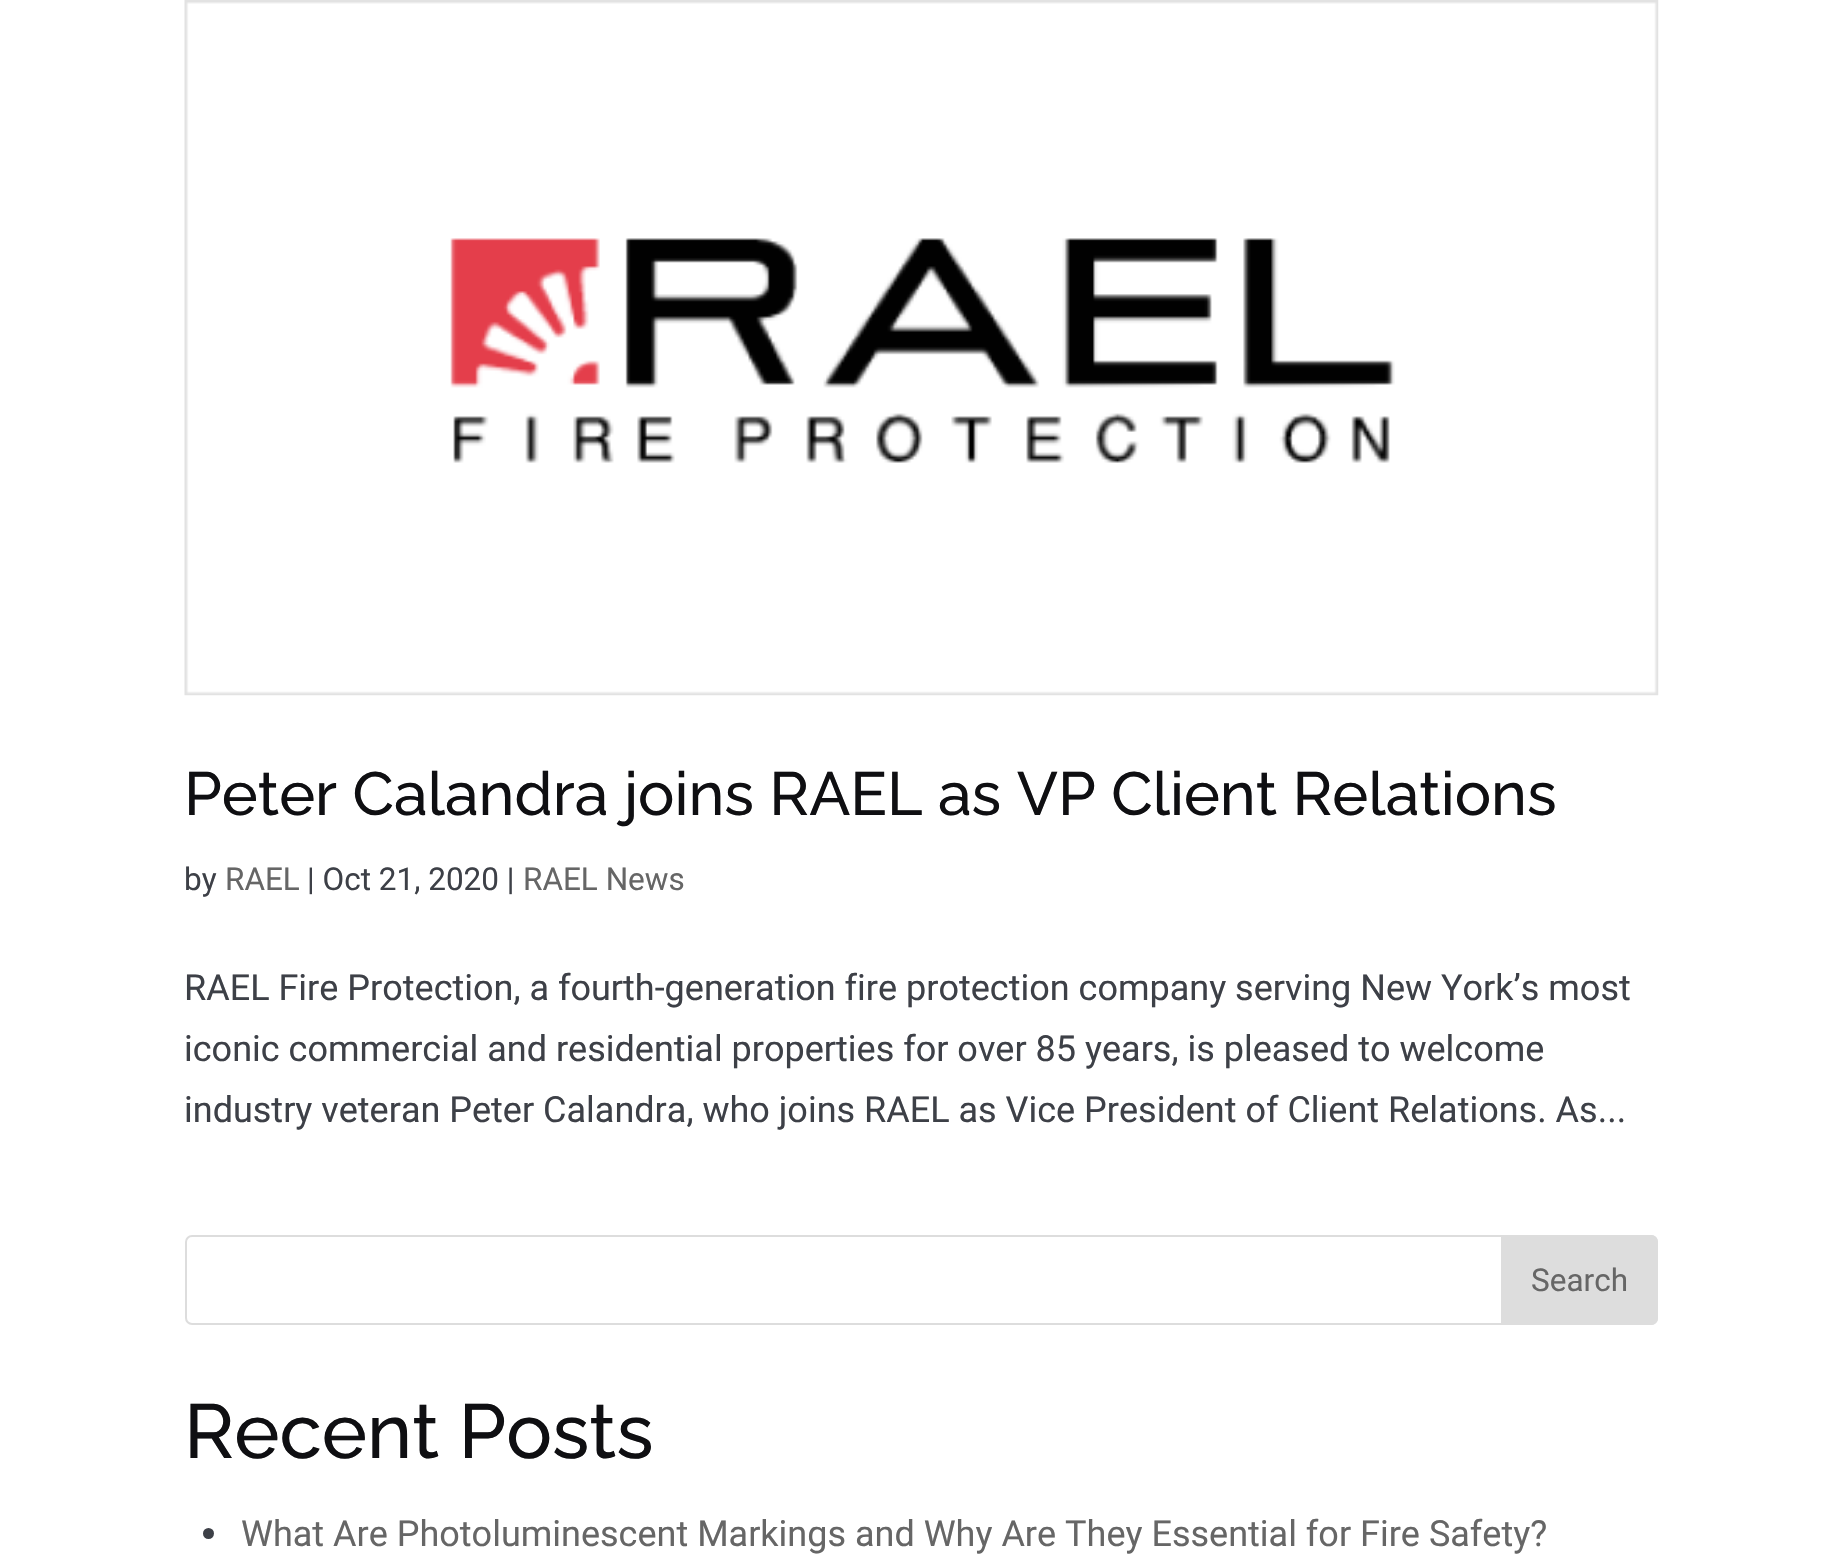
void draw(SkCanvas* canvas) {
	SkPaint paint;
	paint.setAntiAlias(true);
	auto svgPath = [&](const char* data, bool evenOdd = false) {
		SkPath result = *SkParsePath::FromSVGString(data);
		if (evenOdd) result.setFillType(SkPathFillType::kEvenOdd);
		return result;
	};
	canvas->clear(0xffffffff);
	canvas->drawImageRect(SkImages::DeferredFromEncodedData(SkData::MakeFromFileName("img1.png")), SkRect::MakeXYWH(184, 0, 1475, 696), SkSamplingOptions());
	SkFont f1(fontMgr->matchFamilyStyle("Raleway", SkFontStyle(500, SkFontStyle::kNormal_Width, SkFontStyle::kUpright_Slant)), 60.75);
	f1.setSubpixel(true);
	paint.setColor(0xff0f0f12);
	canvas->drawString("Peter Calandra joins RAEL as VP Client Relations", 184, 815, f1, paint);
	SkFont f2(fontMgr->matchFamilyStyle("Roboto", SkFontStyle::Normal()), 31.5);
	f2.setSubpixel(true);
	paint.setColor(0xff3d4047);
	canvas->drawString("by", 184, 890, f2, paint);
	paint.setColor(0xff666666);
	canvas->drawString("RAEL", 225, 890, f2, paint);
	paint.setColor(0xff3d4047);
	canvas->drawString("| Oct 21, 2020 |", 307, 890, f2, paint);
	paint.setColor(0xff666666);
	canvas->drawString("RAEL News", 523, 890, f2, paint);
	SkFont f3(fontMgr->matchFamilyStyle("Roboto", SkFontStyle::Normal()), 36);
	f3.setSubpixel(true);
	paint.setColor(0xff3d4047);
	canvas->drawString("RAEL Fire Protection, a fourth-generation fire protection company serving New York’s most", 184, 1000, f3, paint);
	canvas->drawString("iconic commercial and residential properties for over 85 years, is pleased to welcome", 184, 1061, f3, paint);
	canvas->drawString("industry veteran Peter Calandra, who joins RAEL as Vice President of Client Relations. As...", 184, 1122, f3, paint);
	paint.setStroke(true);
	paint.setStrokeWidth(2);
	paint.setColor(0xffdddddd);
	canvas->drawRoundRect(SkRect::MakeXYWH(186, 1236, 1471, 88), 6, 6, paint);
	paint.setStroke(false);
	canvas->drawPath(svgPath("M1502 1236H1651C1654.5 1236 1657 1238.5 1657 1242V1318C1657 1321.5 1654.5 1324 1651 1324H1502Z"), paint);
	paint.setStroke(true);
	canvas->drawPath(svgPath("M1502 1236H1651C1654.5 1236 1657 1238.5 1657 1242V1318C1657 1321.5 1654.5 1324 1651 1324H1502Z"), paint);
	paint.setStroke(false);
	paint.setColor(0xff666666);
	canvas->drawString("Search", 1531, 1291, f2, paint);
	SkFont f4(fontMgr->matchFamilyStyle("Raleway", SkFontStyle(500, SkFontStyle::kNormal_Width, SkFontStyle::kUpright_Slant)), 76.5);
	f4.setSubpixel(true);
	paint.setColor(0xff0f0f12);
	canvas->drawString("Recent Posts", 184, 1458, f4, paint);
	paint.setColor(0xff3d4047);
	canvas->drawCircle(208.5, 1533.5, 5.5, paint);
	paint.setColor(0xff666666);
	canvas->drawString("What Are Photoluminescent Markings and Why Are They Essential for Fire Safety?", 241, 1546, f3, paint);
}
